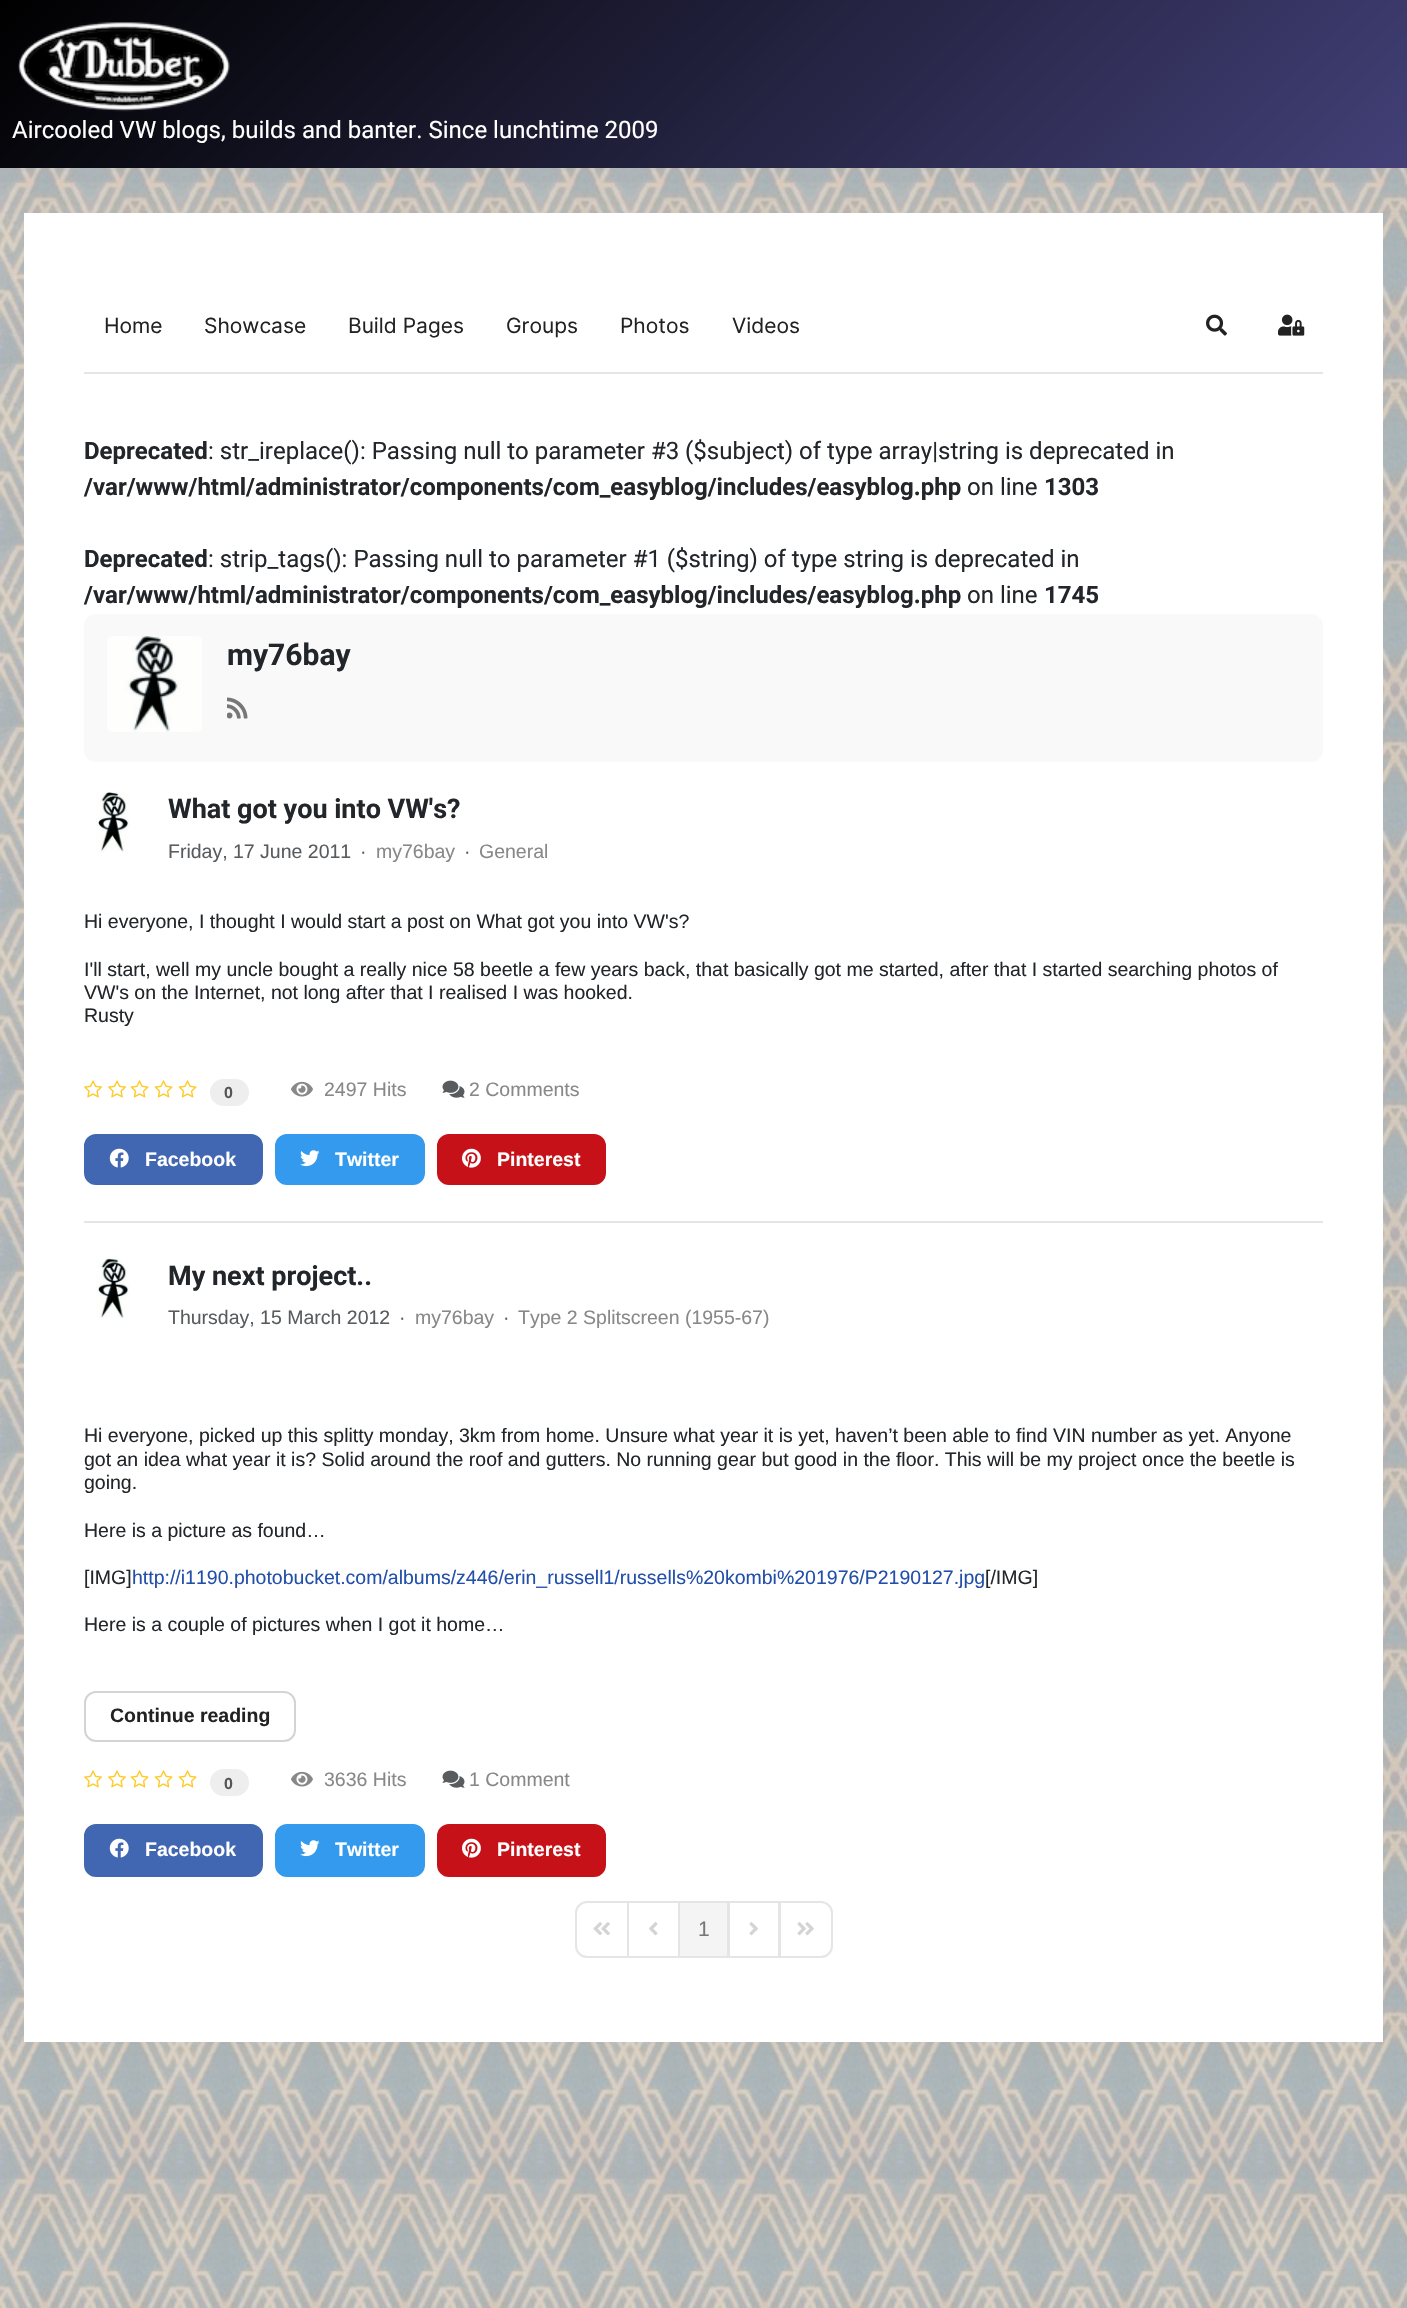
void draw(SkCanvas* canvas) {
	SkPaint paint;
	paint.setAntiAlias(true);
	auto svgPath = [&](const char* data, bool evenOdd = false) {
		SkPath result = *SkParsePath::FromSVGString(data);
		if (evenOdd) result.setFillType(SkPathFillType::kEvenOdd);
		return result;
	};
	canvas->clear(0xffffffff);
	canvas->drawImageRect(SkImages::DeferredFromEncodedData(SkData::MakeFromFileName("img1.png")), SkRect::MakeXYWH(0, 168, 1407, 2140), SkSamplingOptions());
	{
		const SkColor colors[] = {0xff000000, 0xff424077};
		const float stops[] = {0, 1};
		const SkPoint ends[] = {{310, -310}, {1097, 478}};
		paint.setShader(SkGradientShader::MakeLinear(ends, colors, stops, 2, SkTileMode::kClamp));
		paint.setAlpha(255);
	}
	canvas->drawRect(SkRect::MakeXYWH(0, 0, 1407, 168), paint);
	canvas->drawImageRect(SkImages::DeferredFromEncodedData(SkData::MakeFromFileName("img2.png")), SkRect::MakeXYWH(18, 22, 212, 90), SkSamplingOptions());
	SkFont f1(fontMgr->matchFamilyStyle("Roboto", SkFontStyle::Normal()), 24);
	f1.setSubpixel(true);
	paint.setShader(nullptr);
	paint.setColor(0xffffffff);
	canvas->drawString("Aircooled VW blogs, builds and banter. Since lunchtime 2009", 12, 138, f1, paint);
	canvas->drawRect(SkRect::MakeXYWH(24, 213, 1359, 1829), paint);
	SkFont f2(fontMgr->matchFamilyStyle("Inter", SkFontStyle::Normal()), 21);
	f2.setSubpixel(true);
	paint.setColor(0xff222222);
	canvas->drawString("Home", 104, 333, f2, paint);
	canvas->drawString("Showcase", 204, 333, f2, paint);
	canvas->drawString("Build Pages", 348, 333, f2, paint);
	canvas->drawString("Groups", 506, 333, f2, paint);
	canvas->drawString("Photos", 620, 333, f2, paint);
	canvas->drawString("Videos", 732, 333, f2, paint);
	canvas->drawImageRect(SkImages::DeferredFromEncodedData(SkData::MakeFromFileName("img3.png")), SkRect::MakeXYWH(1206, 314, 21, 22), SkSamplingOptions());
	canvas->drawImageRect(SkImages::DeferredFromEncodedData(SkData::MakeFromFileName("img4.png")), SkRect::MakeXYWH(1278, 314, 27, 22), SkSamplingOptions());
	paint.setColor(0xffe5e5e5);
	canvas->drawRect(SkRect::MakeXYWH(84, 372, 1239, 2), paint);
	SkFont f3(fontMgr->matchFamilyStyle("Roboto", SkFontStyle::Bold()), 24);
	f3.setSubpixel(true);
	paint.setColor(0xff22262a);
	canvas->drawString("Deprecated", 84, 459, f3, paint);
	canvas->drawString(": str_ireplace(): Passing null to parameter #3 ($subject) of type array|string is deprecated in", 208, 459, f1, paint);
	canvas->drawString("/var/www/html/administrator/components/com_easyblog/includes/easyblog.php", 84, 495, f3, paint);
	canvas->drawString("on line", 967, 495, f1, paint);
	canvas->drawString("1303", 1044, 495, f3, paint);
	canvas->drawString("Deprecated", 84, 567, f3, paint);
	canvas->drawString(": strip_tags(): Passing null to parameter #1 ($string) of type string is deprecated in", 208, 567, f1, paint);
	canvas->drawString("/var/www/html/administrator/components/com_easyblog/includes/easyblog.php", 84, 603, f3, paint);
	canvas->drawString("on line", 967, 603, f1, paint);
	canvas->drawString("1745", 1044, 603, f3, paint);
	paint.setColor(0xfff9f9f9);
	canvas->drawRoundRect(SkRect::MakeXYWH(84, 614, 1239, 148), 12, 12, paint);
	canvas->drawImageRect(SkImages::DeferredFromEncodedData(SkData::MakeFromFileName("img5.png")), SkRect::MakeXYWH(107, 636, 95, 96), SkSamplingOptions());
	SkFont f4(fontMgr->matchFamilyStyle("Roboto", SkFontStyle::Bold()), 30);
	f4.setSubpixel(true);
	paint.setColor(0xff22262a);
	canvas->drawString("my76bay", 227, 665, f4, paint);
	canvas->drawImageRect(SkImages::DeferredFromEncodedData(SkData::MakeFromFileName("img6.png")), SkRect::MakeXYWH(227, 697, 21, 22), SkSamplingOptions());
	canvas->drawImageRect(SkImages::DeferredFromEncodedData(SkData::MakeFromFileName("img7.png")), SkRect::MakeXYWH(96, 792, 34, 60), SkSamplingOptions());
	SkFont f5(fontMgr->matchFamilyStyle("Roboto", SkFontStyle::Bold()), 27);
	f5.setSubpixel(true);
	canvas->drawString("What got you into VW's?", 168, 818, f5, paint);
	SkFont f6(fontMgr->matchFamilyStyle("Liberation Sans", SkFontStyle::Normal()), 19.5);
	f6.setSubpixel(true);
	paint.setColor(0xff595c5f);
	canvas->drawString("Friday, 17 June 2011", 168, 858, f6, paint);
	canvas->drawString("·", 360, 858, f6, paint);
	paint.setColor(0xff888888);
	canvas->drawString("my76bay", 376, 858, f6, paint);
	paint.setColor(0xff595c5f);
	canvas->drawString("·", 464, 858, f6, paint);
	paint.setColor(0xff888888);
	canvas->drawString("General", 479, 858, f6, paint);
	paint.setColor(0xff22262a);
	canvas->drawString("Hi everyone, I thought I would start a post on What got you into VW's?", 84, 928, f6, paint);
	canvas->drawString("I'll start, well my uncle bought a really nice 58 beetle a few years back, that basically got me started, after that I started searching photos of", 84, 976, f6, paint);
	canvas->drawString("VW's on the Internet, not long after that I realised I was hooked.", 84, 999, f6, paint);
	canvas->drawString("Rusty", 84, 1022, f6, paint);
	canvas->drawImageRect(SkImages::DeferredFromEncodedData(SkData::MakeFromFileName("img8.png")), SkRect::MakeXYWH(84, 1080, 18, 18), SkSamplingOptions());
	canvas->drawImageRect(SkImages::DeferredFromEncodedData(SkData::MakeFromFileName("img8.png")), SkRect::MakeXYWH(108, 1080, 18, 18), SkSamplingOptions());
	canvas->drawImageRect(SkImages::DeferredFromEncodedData(SkData::MakeFromFileName("img9.png")), SkRect::MakeXYWH(130, 1080, 19, 18), SkSamplingOptions());
	canvas->drawImageRect(SkImages::DeferredFromEncodedData(SkData::MakeFromFileName("img9.png")), SkRect::MakeXYWH(154, 1080, 19, 18), SkSamplingOptions());
	canvas->drawImageRect(SkImages::DeferredFromEncodedData(SkData::MakeFromFileName("img9.png")), SkRect::MakeXYWH(178, 1080, 19, 18), SkSamplingOptions());
	paint.setColor(0xffeeeeee);
	canvas->drawRoundRect(SkRect::MakeXYWH(210, 1079, 39, 27), 13.5, 13.5, paint);
	SkFont f7(fontMgr->matchFamilyStyle("Liberation Sans", SkFontStyle::Bold()), 16);
	f7.setSubpixel(true);
	paint.setColor(0xff555555);
	canvas->drawString("0", 224, 1098, f7, paint);
	canvas->drawImageRect(SkImages::DeferredFromEncodedData(SkData::MakeFromFileName("img10.png")), SkRect::MakeXYWH(291, 1081, 22, 16), SkSamplingOptions());
	paint.setColor(0xff888888);
	canvas->drawString("2497 Hits", 324, 1096, f6, paint);
	canvas->drawImageRect(SkImages::DeferredFromEncodedData(SkData::MakeFromFileName("img11.png")), SkRect::MakeXYWH(442, 1080, 23, 18), SkSamplingOptions());
	canvas->drawString("2 Comments", 469, 1096, f6, paint);
	paint.setColor(0xff4267b2);
	canvas->drawRoundRect(SkRect::MakeXYWH(85, 1135, 177, 49), 11, 11, paint);
	paint.setStroke(true);
	paint.setStrokeWidth(2);
	canvas->drawRoundRect(SkRect::MakeXYWH(85, 1135, 177, 49), 11, 11, paint);
	canvas->drawImageRect(SkImages::DeferredFromEncodedData(SkData::MakeFromFileName("img12.png")), SkRect::MakeXYWH(109, 1148, 20, 20), SkSamplingOptions());
	SkFont f8(fontMgr->matchFamilyStyle("Liberation Sans", SkFontStyle::Bold()), 19.5);
	f8.setSubpixel(true);
	paint.setStroke(false);
	paint.setColor(0xffffffff);
	canvas->drawString("Facebook", 145, 1166, f8, paint);
	paint.setColor(0xff339aed);
	canvas->drawRoundRect(SkRect::MakeXYWH(276, 1135, 148, 49), 11, 11, paint);
	paint.setStroke(true);
	canvas->drawRoundRect(SkRect::MakeXYWH(276, 1135, 148, 49), 11, 11, paint);
	canvas->drawImageRect(SkImages::DeferredFromEncodedData(SkData::MakeFromFileName("img13.png")), SkRect::MakeXYWH(300, 1150, 20, 17), SkSamplingOptions());
	paint.setStroke(false);
	paint.setColor(0xffffffff);
	canvas->drawString("Twitter", 335, 1166, f8, paint);
	paint.setColor(0xffc61118);
	canvas->drawRoundRect(SkRect::MakeXYWH(438, 1135, 167, 49), 11, 11, paint);
	paint.setStroke(true);
	canvas->drawRoundRect(SkRect::MakeXYWH(438, 1135, 167, 49), 11, 11, paint);
	canvas->drawImageRect(SkImages::DeferredFromEncodedData(SkData::MakeFromFileName("img14.png")), SkRect::MakeXYWH(462, 1148, 19, 20), SkSamplingOptions());
	paint.setStroke(false);
	paint.setColor(0xffffffff);
	canvas->drawString("Pinterest", 497, 1166, f8, paint);
	paint.setColor(0xffe5e5e5);
	canvas->drawRect(SkRect::MakeXYWH(84, 1221, 1239, 2), paint);
	canvas->drawImageRect(SkImages::DeferredFromEncodedData(SkData::MakeFromFileName("img15.png")), SkRect::MakeXYWH(96, 1258, 34, 60), SkSamplingOptions());
	paint.setColor(0xff22262a);
	canvas->drawString("My next project..", 168, 1285, f5, paint);
	paint.setColor(0xff595c5f);
	canvas->drawString("Thursday, 15 March 2012", 168, 1324, f6, paint);
	canvas->drawString("·", 399, 1324, f6, paint);
	paint.setColor(0xff888888);
	canvas->drawString("my76bay", 415, 1324, f6, paint);
	paint.setColor(0xff595c5f);
	canvas->drawString("·", 503, 1324, f6, paint);
	paint.setColor(0xff888888);
	canvas->drawString("Type 2 Splitscreen (1955-67)", 518, 1324, f6, paint);
	paint.setColor(0xff22262a);
	canvas->drawString("Hi everyone, picked up this splitty monday, 3km from home. Unsure what year it is yet, haven’t been able to find VIN number as yet. Anyone", 84, 1442, f6, paint);
	canvas->drawString("got an idea what year it is? Solid around the roof and gutters. No running gear but good in the floor. This will be my project once the beetle is", 84, 1466, f6, paint);
	canvas->drawString("going.", 84, 1489, f6, paint);
	canvas->drawString("Here is a picture as found…", 84, 1537, f6, paint);
	canvas->drawString("[IMG]", 84, 1584, f6, paint);
	paint.setColor(0xff224faa);
	canvas->drawString("http://i1190.photobucket.com/albums/z446/erin_russell1/russells%20kombi%201976/P2190127.jpg", 132, 1584, f6, paint);
	paint.setColor(0xff22262a);
	canvas->drawString("[/IMG]", 985, 1584, f6, paint);
	canvas->drawString("Here is a couple of pictures when I got it home…", 84, 1631, f6, paint);
	paint.setStroke(true);
	paint.setColor(0xffd4d4d4);
	canvas->drawRoundRect(SkRect::MakeXYWH(85, 1692, 210, 49), 11, 11, paint);
	paint.setStroke(false);
	paint.setColor(0xff222222);
	canvas->drawString("Continue reading", 110, 1722, f8, paint);
	canvas->drawImageRect(SkImages::DeferredFromEncodedData(SkData::MakeFromFileName("img8.png")), SkRect::MakeXYWH(84, 1770, 18, 18), SkSamplingOptions());
	canvas->drawImageRect(SkImages::DeferredFromEncodedData(SkData::MakeFromFileName("img8.png")), SkRect::MakeXYWH(108, 1770, 18, 18), SkSamplingOptions());
	canvas->drawImageRect(SkImages::DeferredFromEncodedData(SkData::MakeFromFileName("img9.png")), SkRect::MakeXYWH(130, 1770, 19, 18), SkSamplingOptions());
	canvas->drawImageRect(SkImages::DeferredFromEncodedData(SkData::MakeFromFileName("img9.png")), SkRect::MakeXYWH(154, 1770, 19, 18), SkSamplingOptions());
	canvas->drawImageRect(SkImages::DeferredFromEncodedData(SkData::MakeFromFileName("img9.png")), SkRect::MakeXYWH(178, 1770, 19, 18), SkSamplingOptions());
	paint.setColor(0xffeeeeee);
	canvas->drawRoundRect(SkRect::MakeXYWH(210, 1769, 39, 27), 13.5, 13.5, paint);
	paint.setColor(0xff555555);
	canvas->drawString("0", 224, 1789, f7, paint);
	canvas->drawImageRect(SkImages::DeferredFromEncodedData(SkData::MakeFromFileName("img10.png")), SkRect::MakeXYWH(291, 1771, 22, 16), SkSamplingOptions());
	paint.setColor(0xff888888);
	canvas->drawString("3636 Hits", 324, 1786, f6, paint);
	canvas->drawImageRect(SkImages::DeferredFromEncodedData(SkData::MakeFromFileName("img11.png")), SkRect::MakeXYWH(442, 1770, 23, 18), SkSamplingOptions());
	canvas->drawString("1 Comment", 469, 1786, f6, paint);
	paint.setColor(0xff4267b2);
	canvas->drawRoundRect(SkRect::MakeXYWH(85, 1825, 177, 51), 11, 11, paint);
	paint.setStroke(true);
	canvas->drawRoundRect(SkRect::MakeXYWH(85, 1825, 177, 51), 11, 11, paint);
	canvas->drawImageRect(SkImages::DeferredFromEncodedData(SkData::MakeFromFileName("img12.png")), SkRect::MakeXYWH(109, 1838, 20, 20), SkSamplingOptions());
	paint.setStroke(false);
	paint.setColor(0xffffffff);
	canvas->drawString("Facebook", 145, 1856, f8, paint);
	paint.setColor(0xff339aed);
	canvas->drawRoundRect(SkRect::MakeXYWH(276, 1825, 148, 51), 11, 11, paint);
	paint.setStroke(true);
	canvas->drawRoundRect(SkRect::MakeXYWH(276, 1825, 148, 51), 11, 11, paint);
	canvas->drawImageRect(SkImages::DeferredFromEncodedData(SkData::MakeFromFileName("img13.png")), SkRect::MakeXYWH(300, 1840, 20, 17), SkSamplingOptions());
	paint.setStroke(false);
	paint.setColor(0xffffffff);
	canvas->drawString("Twitter", 335, 1856, f8, paint);
	paint.setColor(0xffc61118);
	canvas->drawRoundRect(SkRect::MakeXYWH(438, 1825, 167, 51), 11, 11, paint);
	paint.setStroke(true);
	canvas->drawRoundRect(SkRect::MakeXYWH(438, 1825, 167, 51), 11, 11, paint);
	canvas->drawImageRect(SkImages::DeferredFromEncodedData(SkData::MakeFromFileName("img14.png")), SkRect::MakeXYWH(462, 1838, 19, 20), SkSamplingOptions());
	paint.setStroke(false);
	paint.setColor(0xffffffff);
	canvas->drawString("Pinterest", 497, 1856, f8, paint);
	paint.setStroke(true);
	paint.setColor(0xffe5e5e5);
	canvas->drawPath(svgPath("M587 1902H628V1957H587C581 1957 576 1952 576 1946V1913C576 1907 581 1902 587 1902Z"), paint);
	canvas->drawImageRect(SkImages::DeferredFromEncodedData(SkData::MakeFromFileName("img16.png")), SkRect::MakeXYWH(593, 1922, 17, 13), SkSamplingOptions());
	canvas->drawRect(SkRect::MakeXYWH(628, 1902, 51, 55), paint);
	canvas->drawImageRect(SkImages::DeferredFromEncodedData(SkData::MakeFromFileName("img17.png")), SkRect::MakeXYWH(649, 1922, 9, 14), SkSamplingOptions());
	paint.setStroke(false);
	paint.setColor(0xfff4f4f4);
	canvas->drawRect(SkRect::MakeXYWH(679, 1902, 49, 55), paint);
	paint.setStroke(true);
	paint.setColor(0xffe5e5e5);
	canvas->drawRect(SkRect::MakeXYWH(679, 1902, 49, 55), paint);
	SkFont f9(fontMgr->matchFamilyStyle("Liberation Sans", SkFontStyle::Normal()), 21);
	f9.setSubpixel(true);
	paint.setStroke(false);
	paint.setColor(0xff777777);
	canvas->drawString("1", 698, 1936, f9, paint);
	paint.setStroke(true);
	paint.setColor(0xffe5e5e5);
	canvas->drawRect(SkRect::MakeXYWH(729, 1902, 50, 55), paint);
	canvas->drawImageRect(SkImages::DeferredFromEncodedData(SkData::MakeFromFileName("img18.png")), SkRect::MakeXYWH(749, 1922, 9, 14), SkSamplingOptions());
	paint.setStroke(false);
	paint.setColor(0xffffffff);
	canvas->drawPath(svgPath("M780 1902H821C827 1902 832 1907 832 1913V1946C832 1952 827 1957 821 1957H780Z"), paint);
	paint.setStroke(true);
	paint.setColor(0xffe5e5e5);
	canvas->drawPath(svgPath("M780 1902H821C827 1902 832 1907 832 1913V1946C832 1952 827 1957 821 1957H780Z"), paint);
	canvas->drawImageRect(SkImages::DeferredFromEncodedData(SkData::MakeFromFileName("img19.png")), SkRect::MakeXYWH(797, 1922, 17, 14), SkSamplingOptions());
}
